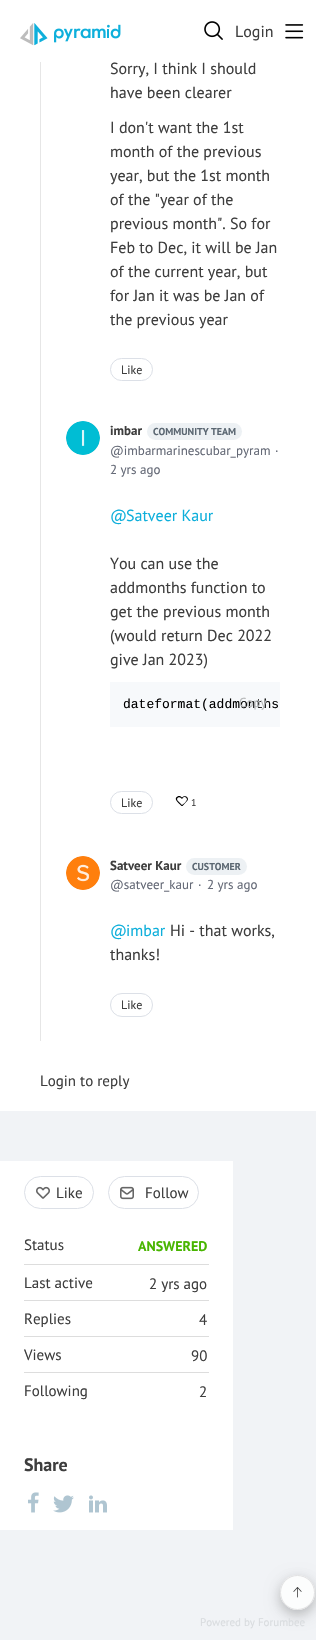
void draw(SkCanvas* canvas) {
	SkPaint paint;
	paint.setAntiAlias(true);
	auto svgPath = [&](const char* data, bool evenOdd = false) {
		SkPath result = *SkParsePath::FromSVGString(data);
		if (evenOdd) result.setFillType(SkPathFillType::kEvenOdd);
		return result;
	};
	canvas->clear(0xfff1f3f6);
	paint.setColor(0xffffffff);
	canvas->drawRect(SkRect::MakeXYWH(0, 0, 316, 1111), paint);
	canvas->drawImageRect(SkImages::DeferredFromEncodedData(SkData::MakeFromFileName("img1.png")), SkRect::MakeXYWH(20, 23, 101, 23), SkSamplingOptions());
	canvas->drawImageRect(SkImages::DeferredFromEncodedData(SkData::MakeFromFileName("img2.png")), SkRect::MakeXYWH(204, 21, 19, 19), SkSamplingOptions());
	SkFont f1(fontMgr->matchFamilyStyle("PT Sans", SkFontStyle::Normal()), 16);
	f1.setSubpixel(true);
	paint.setColor(0xff3e3e3e);
	canvas->drawString("Login", 235, 37, f1, paint);
	canvas->drawImageRect(SkImages::DeferredFromEncodedData(SkData::MakeFromFileName("img3.png")), SkRect::MakeXYWH(285, 24, 19, 15), SkSamplingOptions());
	paint.setColor(0xffe6e6e6);
	canvas->drawRect(SkRect::MakeXYWH(40, 62, 1, 979), paint);
	paint.setColor(0xff3e3e3e);
	canvas->drawString("Sorry, I think I should", 110, 74, f1, paint);
	canvas->drawString("have been clearer", 110, 98, f1, paint);
	canvas->drawString("I don't want the 1st", 110, 133, f1, paint);
	canvas->drawString("month of the previous", 110, 157, f1, paint);
	canvas->drawString("year, but the 1st month", 110, 181, f1, paint);
	canvas->drawString("of the \"year of the", 110, 205, f1, paint);
	canvas->drawString("previous month\". So for", 110, 229, f1, paint);
	canvas->drawString("Feb to Dec, it will be Jan", 110, 253, f1, paint);
	canvas->drawString("of the current year, but", 110, 277, f1, paint);
	canvas->drawString("for Jan it was be Jan of", 110, 301, f1, paint);
	canvas->drawString("the previous year", 110, 325, f1, paint);
	paint.setStroke(true);
	paint.setStrokeWidth(1);
	paint.setColor(0xffdce0e7);
	canvas->drawRoundRect(SkRect::MakeXYWH(110.5, 358.5, 42, 22), 11, 11, paint);
	SkFont f2(fontMgr->matchFamilyStyle("PT Sans", SkFontStyle::Normal()), 12);
	f2.setSubpixel(true);
	paint.setStroke(false);
	paint.setColor(0xff3e3e3e);
	canvas->drawString("Like", 121, 374, f2, paint);
	paint.setColor(0xffefefef);
	canvas->drawCircle(83, 438, 17, paint);
	canvas->drawImageRect(SkImages::DeferredFromEncodedData(SkData::MakeFromFileName("img4.png")), SkRect::MakeXYWH(66, 421, 34, 34), SkSamplingOptions());
	SkFont f3(fontMgr->matchFamilyStyle("PT Sans", SkFontStyle::Bold()), 13);
	f3.setSubpixel(true);
	paint.setColor(0xff3e3e3e);
	canvas->drawString("imbar", 110, 435, f3, paint);
	paint.setColor(0xffedf1f4);
	canvas->drawRoundRect(SkRect::MakeXYWH(147, 423, 95, 17), 8.5, 8.5, paint);
	SkFont f4(fontMgr->matchFamilyStyle("PT Sans", SkFontStyle::Bold()), 10);
	f4.setSubpixel(true);
	paint.setColor(0xff5b6772);
	canvas->drawString("COMMUNITY TEAM", 153, 435, f4, paint);
	SkFont f5(fontMgr->matchFamilyStyle("PT Sans", SkFontStyle::Normal()), 13);
	f5.setSubpixel(true);
	paint.setColor(0xff646976);
	canvas->drawString("@imbarmarinescubar_pyram", 110, 455, f5, paint);
	canvas->drawString("·", 275, 455, f5, paint);
	canvas->drawString("2 yrs ago", 110, 474, f5, paint);
	paint.setColor(0xff0eafdb);
	canvas->drawString("@", 110, 521, f1, paint);
	canvas->drawString("Satveer Kaur", 126, 521, f1, paint);
	paint.setColor(0xff3e3e3e);
	canvas->drawString("You can use the", 110, 569, f1, paint);
	canvas->drawString("addmonths function to", 110, 593, f1, paint);
	canvas->drawString("get the previous month", 110, 617, f1, paint);
	canvas->drawString("(would return Dec 2022", 110, 641, f1, paint);
	canvas->drawString("give Jan 2023)", 110, 665, f1, paint);
	paint.setColor(0xfff7f9fb);
	canvas->drawRect(SkRect::MakeXYWH(110, 682, 170, 45), paint);
	SkFont f6(fontMgr->matchFamilyStyle("Liberation Mono", SkFontStyle::Normal()), 13);
	f6.setSubpixel(true);
	paint.setColor(0xff000000);
	canvas->drawString("dateformat(addmonths", 123, 708, f6, paint);
	paint.setColor(0xffb7b9ba);
	canvas->drawString("Copy", 239, 707, f5, paint);
	paint.setStroke(true);
	paint.setColor(0xffdce0e7);
	canvas->drawRoundRect(SkRect::MakeXYWH(110.5, 791.5, 42, 22), 11, 11, paint);
	paint.setStroke(false);
	paint.setColor(0xff3e3e3e);
	canvas->drawString("Like", 121, 807, f2, paint);
	paint.setColor(0xff000000);
	canvas->drawPath(svgPath("M177.5 796.5C173.5 798.5 177.5 802 179.5 804L181.5 806H182.5L187.5 800.5C189.5 797 184.5 794.5 182 797.5C181 796.5 179.5 795.5 177.5 796.5ZM181 798C182.5 800 182 798 184 797C185.5 796.5 187 798 187 799.5C186.5 801.5 183.5 804 182 805L177.5 800.5C176 798 179 796 181 798Z", true), paint);
	SkFont f7(fontMgr->matchFamilyStyle("PT Sans", SkFontStyle::Normal()), 10);
	f7.setSubpixel(true);
	paint.setColor(0xff3e3e3e);
	canvas->drawString("1", 191, 806, f7, paint);
	paint.setColor(0xffefefef);
	canvas->drawCircle(83, 873, 17, paint);
	canvas->drawImageRect(SkImages::DeferredFromEncodedData(SkData::MakeFromFileName("img5.png")), SkRect::MakeXYWH(66, 856, 34, 34), SkSamplingOptions());
	paint.setColor(0xff3e3e3e);
	canvas->drawString("Satveer Kaur", 110, 870, f3, paint);
	paint.setColor(0xffedf1f4);
	canvas->drawRoundRect(SkRect::MakeXYWH(186, 858, 61, 17), 8.5, 8.5, paint);
	paint.setColor(0xff5b6772);
	canvas->drawString("CUSTOMER", 192, 870, f4, paint);
	paint.setColor(0xff646976);
	canvas->drawString("@satveer_kaur", 110, 889, f5, paint);
	canvas->drawString("·", 198, 889, f5, paint);
	canvas->drawString("2 yrs ago", 207, 889, f5, paint);
	paint.setColor(0xff0eafdb);
	canvas->drawString("@", 110, 936, f1, paint);
	canvas->drawString("imbar", 126, 936, f1, paint);
	paint.setColor(0xff3e3e3e);
	canvas->drawString("Hi - that works,", 170, 936, f1, paint);
	canvas->drawString("thanks!", 110, 960, f1, paint);
	paint.setStroke(true);
	paint.setColor(0xffdce0e7);
	canvas->drawRoundRect(SkRect::MakeXYWH(110.5, 993.5, 42, 23), 11.5, 11.5, paint);
	paint.setStroke(false);
	paint.setColor(0xff3e3e3e);
	canvas->drawString("Like", 121, 1009, f2, paint);
	SkFont f8(fontMgr->matchFamilyStyle("PT Sans", SkFontStyle::Normal()), 15);
	f8.setSubpixel(true);
	canvas->drawString("Login to reply", 40, 1086, f8, paint);
	paint.setColor(0x1f000000);
	paint.setMaskFilter(SkMaskFilter::MakeBlur(kNormal_SkBlurStyle, 7.5));
	canvas->drawRoundRect(SkRect::MakeXYWH(280, 1579, 35, 35), 17.5, 17.5, paint);
	paint.setMaskFilter(nullptr);
	paint.setColor(0x24000000);
	paint.setMaskFilter(SkMaskFilter::MakeBlur(kNormal_SkBlurStyle, 5.5));
	canvas->drawRoundRect(SkRect::MakeXYWH(280, 1580, 35, 35), 17.5, 17.5, paint);
	paint.setMaskFilter(nullptr);
	paint.setColor(0xfffcfdfd);
	canvas->drawCircle(297.5, 1592.5, 17.5, paint);
	canvas->drawImageRect(SkImages::DeferredFromEncodedData(SkData::MakeFromFileName("img6.png")), SkRect::MakeXYWH(293, 1587, 9, 11), SkSamplingOptions());
	paint.setStroke(true);
	paint.setColor(0xffe1e1e2);
	canvas->drawCircle(297.5, 1592.5, 17, paint);
	paint.setStroke(false);
	paint.setColor(0xffffffff);
	canvas->drawRect(SkRect::MakeXYWH(0, 1161, 233, 369), paint);
	paint.setStroke(true);
	paint.setColor(0xffdce0e7);
	canvas->drawRoundRect(SkRect::MakeXYWH(24.5, 1176.5, 69, 32), 16, 16, paint);
	canvas->drawImageRect(SkImages::DeferredFromEncodedData(SkData::MakeFromFileName("img7.png")), SkRect::MakeXYWH(36, 1186, 14, 13), SkSamplingOptions());
	paint.setStroke(false);
	paint.setColor(0xff3e3e3e);
	canvas->drawString("Like", 56, 1198, f8, paint);
	paint.setStroke(true);
	paint.setColor(0xffdce0e7);
	canvas->drawRoundRect(SkRect::MakeXYWH(108.5, 1176.5, 90, 32), 16, 16, paint);
	canvas->drawImageRect(SkImages::DeferredFromEncodedData(SkData::MakeFromFileName("img8.png")), SkRect::MakeXYWH(120, 1186, 14, 14), SkSamplingOptions());
	paint.setStroke(false);
	paint.setColor(0xff3e3e3e);
	canvas->drawString("Follow", 145, 1198, f8, paint);
	canvas->drawString("Status", 24, 1250, f8, paint);
	SkFont f9(fontMgr->matchFamilyStyle("PT Sans", SkFontStyle::Bold()), 14);
	f9.setSubpixel(true);
	paint.setColor(0xff48b500);
	canvas->drawString("ANSWERED", 138, 1251, f9, paint);
	paint.setColor(0xffdddddd);
	canvas->drawRect(SkRect::MakeXYWH(24, 1264, 185, 1), paint);
	paint.setColor(0xff3e3e3e);
	canvas->drawString("Last active", 24, 1288, f8, paint);
	canvas->drawString("2 yrs ago", 149, 1289, f8, paint);
	paint.setColor(0xffdddddd);
	canvas->drawRect(SkRect::MakeXYWH(24, 1300, 185, 1), paint);
	paint.setColor(0xff3e3e3e);
	canvas->drawString("Replies", 24, 1324, f8, paint);
	canvas->drawString("4", 199, 1325, f8, paint);
	paint.setColor(0xffdddddd);
	canvas->drawRect(SkRect::MakeXYWH(24, 1336, 185, 1), paint);
	paint.setColor(0xff3e3e3e);
	canvas->drawString("Views", 24, 1360, f8, paint);
	canvas->drawString("90", 191, 1361, f8, paint);
	paint.setColor(0xffdddddd);
	canvas->drawRect(SkRect::MakeXYWH(24, 1372, 185, 1), paint);
	paint.setColor(0xff3e3e3e);
	canvas->drawString("Following", 24, 1396, f8, paint);
	canvas->drawString("2", 199, 1397, f8, paint);
	SkFont f10(fontMgr->matchFamilyStyle("PT Sans", SkFontStyle::Bold()), 18);
	f10.setSubpixel(true);
	canvas->drawString("Share", 24, 1471, f10, paint);
	canvas->drawImageRect(SkImages::DeferredFromEncodedData(SkData::MakeFromFileName("img9.png")), SkRect::MakeXYWH(28, 1492, 11, 21), SkSamplingOptions());
	canvas->drawImageRect(SkImages::DeferredFromEncodedData(SkData::MakeFromFileName("img10.png")), SkRect::MakeXYWH(53, 1495, 21, 18), SkSamplingOptions());
	canvas->drawImageRect(SkImages::DeferredFromEncodedData(SkData::MakeFromFileName("img11.png")), SkRect::MakeXYWH(89, 1495, 18, 18), SkSamplingOptions());
	SkFont f11(fontMgr->matchFamilyStyle("PT Sans", SkFontStyle::Normal()), 11);
	f11.setSubpixel(true);
	paint.setColor(0xffd9dcdf);
	canvas->drawString("Powered by Forumbee", 200, 1626, f11, paint);
}
